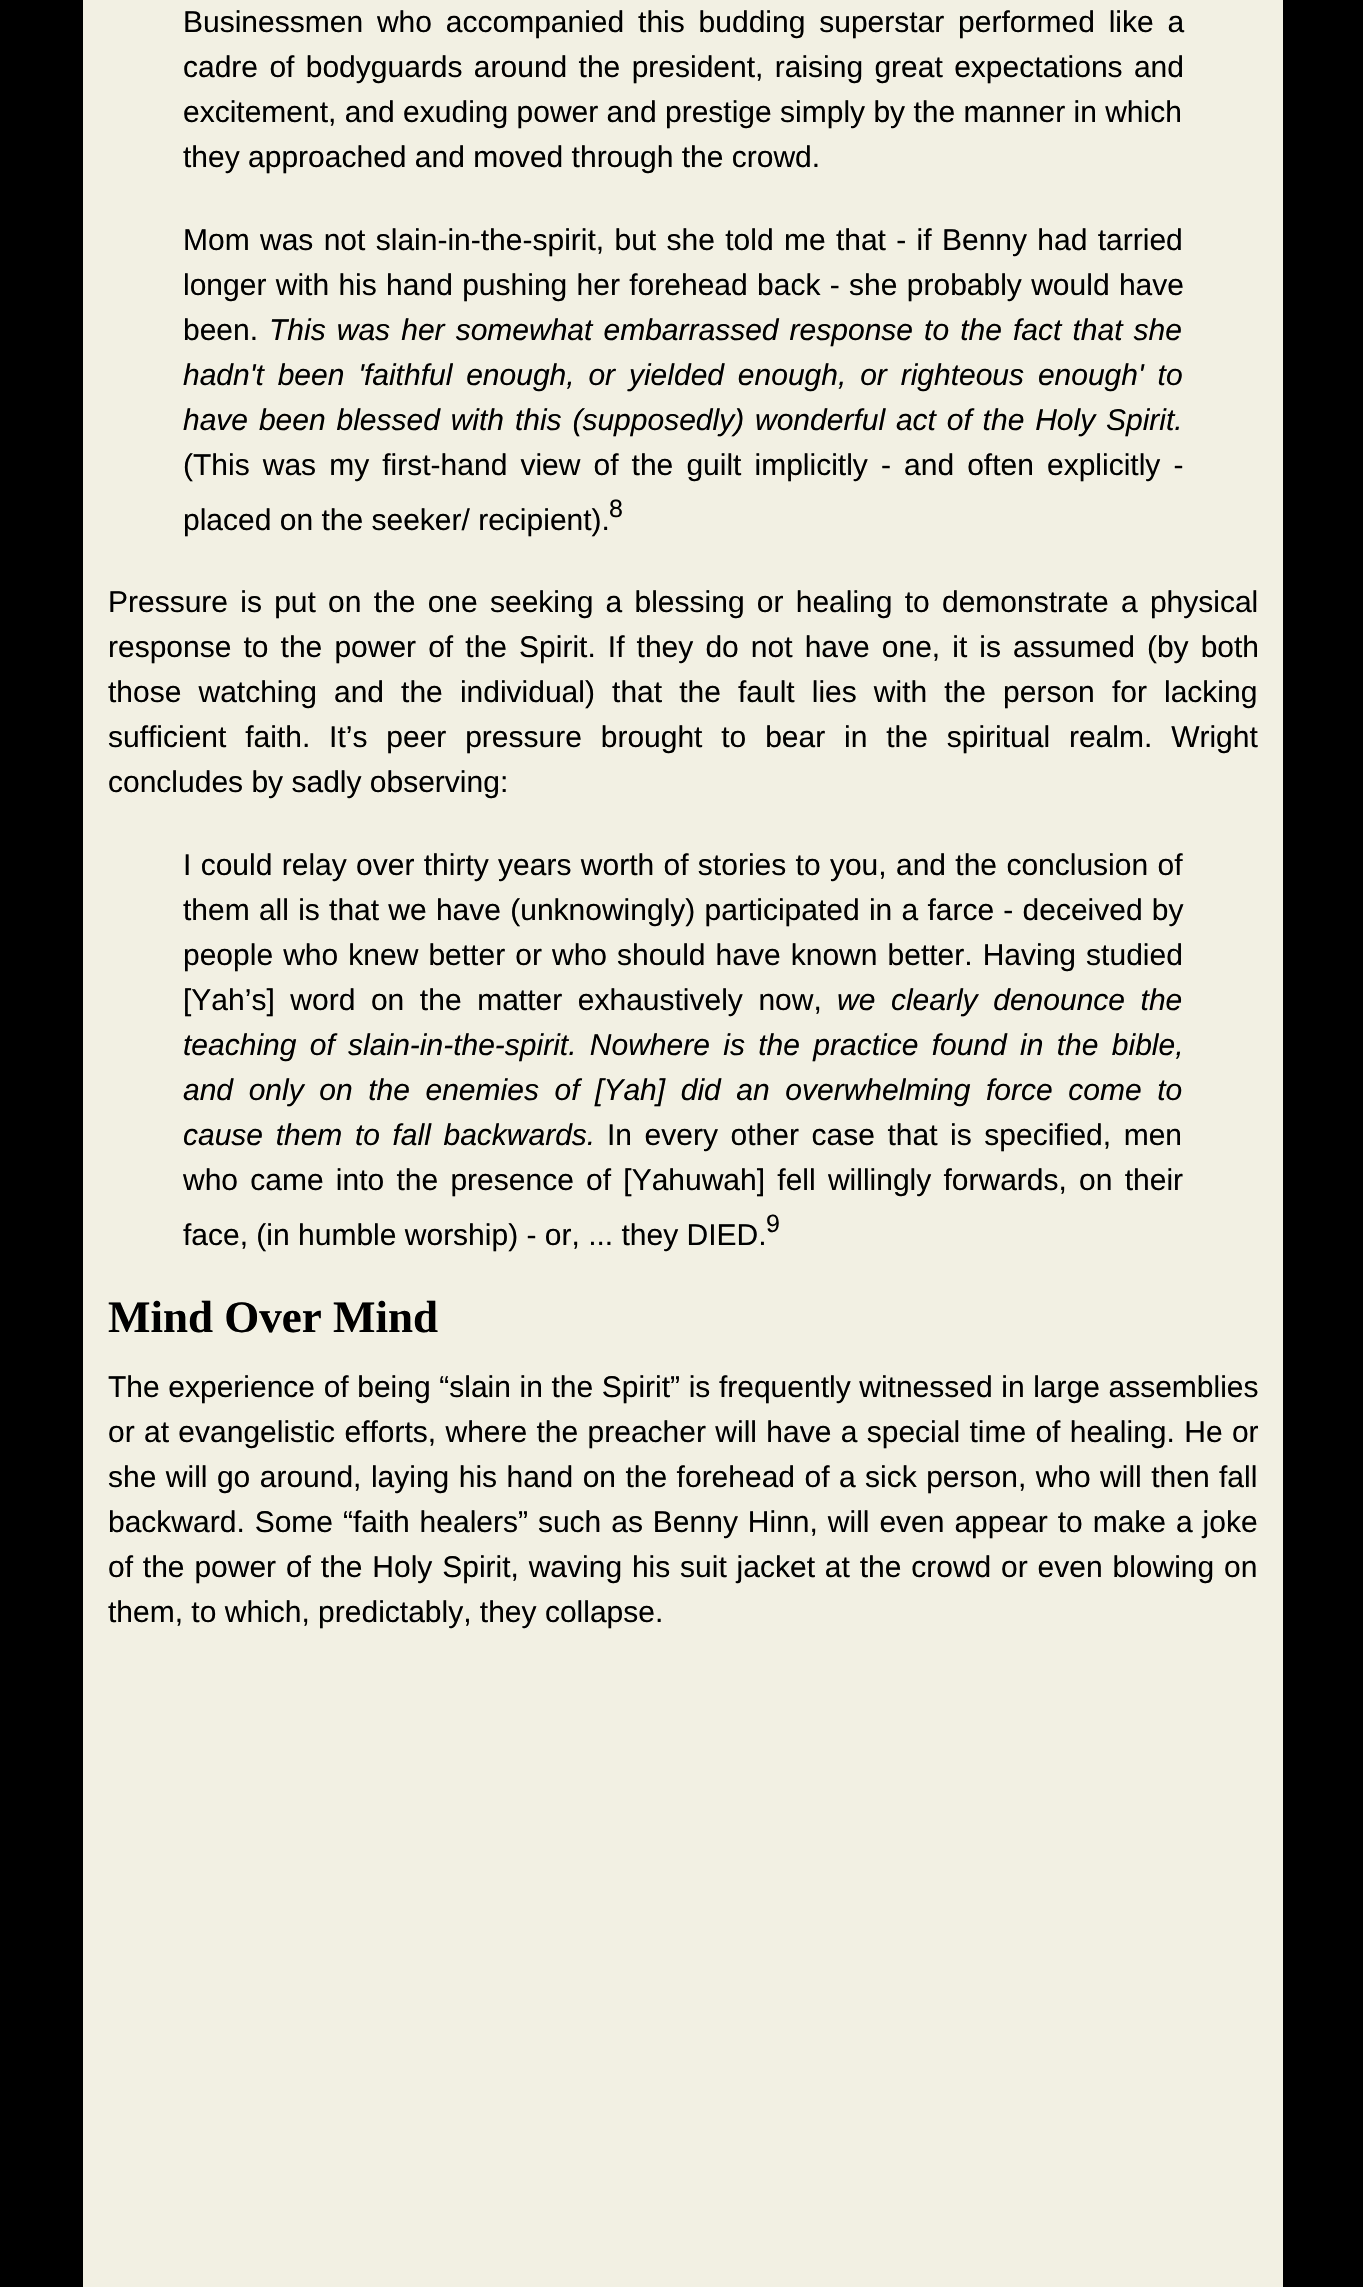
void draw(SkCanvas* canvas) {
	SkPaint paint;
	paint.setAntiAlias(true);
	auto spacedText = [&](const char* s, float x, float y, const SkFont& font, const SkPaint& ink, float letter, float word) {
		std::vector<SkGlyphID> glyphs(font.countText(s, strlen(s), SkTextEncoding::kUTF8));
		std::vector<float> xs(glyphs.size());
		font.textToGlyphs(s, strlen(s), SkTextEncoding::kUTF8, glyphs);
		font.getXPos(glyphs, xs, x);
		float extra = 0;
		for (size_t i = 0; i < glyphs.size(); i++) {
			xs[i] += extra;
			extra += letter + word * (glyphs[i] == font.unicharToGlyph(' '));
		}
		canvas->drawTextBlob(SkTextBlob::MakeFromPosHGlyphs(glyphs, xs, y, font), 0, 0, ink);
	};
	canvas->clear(0xff000000);
	paint.setColor(0xfff2f0e3);
	canvas->drawRect(SkRect::MakeXYWH(83, 0, 1200, 2287), paint);
	SkFont f1(fontMgr->matchFamilyStyle("Liberation Sans", SkFontStyle::Normal()), 30);
	f1.setSubpixel(true);
	paint.setColor(0xff000000);
	spacedText("Businessmen who accompanied this budding superstar performed like a", 183, 32, f1, paint, 0, 5.5);
	spacedText("cadre of bodyguards around the president, raising great expectations and", 183, 77, f1, paint, 0, 3);
	canvas->drawString("excitement, and exuding power and prestige simply by the manner in which", 183, 122, f1, paint);
	canvas->drawString("they approached and moved through the crowd.", 183, 167, f1, paint);
	spacedText("Mom was not slain-in-the-spirit, but she told me that - if Benny had tarried", 183, 250, f1, paint, 0, 2);
	spacedText("longer with his hand pushing her forehead back - she probably would have", 183, 295, f1, paint, 0, 1);
	canvas->drawString("been.", 183, 340, f1, paint);
	SkFont f2(fontMgr->matchFamilyStyle("Liberation Sans", SkFontStyle::Italic()), 30);
	f2.setSubpixel(true);
	spacedText("This was her somewhat embarrassed response to the fact that she", 269, 340, f2, paint, 0, 2.75);
	spacedText("hadn't been 'faithful enough, or yielded enough, or righteous enough' to", 183, 385, f2, paint, 0, 5.5);
	spacedText("have been blessed with this (supposedly) wonderful act of the Holy Spirit.", 183, 430, f2, paint, 0, 2.5);
	spacedText("(This was my first-hand view of the guilt implicitly - and often explicitly -", 183, 475, f1, paint, 0, 4.75);
	canvas->drawString("placed on the seeker/ recipient).", 183, 530, f1, paint);
	SkFont f3(fontMgr->matchFamilyStyle("Liberation Sans", SkFontStyle::Normal()), 25);
	f3.setSubpixel(true);
	canvas->drawString("8", 609, 517, f3, paint);
	spacedText("Pressure is put on the one seeking a blessing or healing to demonstrate a physical", 108, 612, f1, paint, 0, 3.9);
	spacedText("response to the power of the Spirit. If they do not have one, it is assumed (by both", 108, 657, f1, paint, 0, 3.75);
	spacedText("those watching and the individual) that the fault lies with the person for lacking", 108, 702, f1, paint, 0, 8.75);
	spacedText("sufficient faith. It’s peer pressure brought to bear in the spiritual realm. Wright", 108, 747, f1, paint, 0, 10.5);
	canvas->drawString("concludes by sadly observing:", 108, 792, f1, paint);
	spacedText("I could relay over thirty years worth of stories to you, and the conclusion of", 183, 875, f1, paint, 0, 1);
	spacedText("them all is that we have (unknowingly) participated in a farce - deceived by", 183, 920, f1, paint, 0, 0.9);
	spacedText("people who knew better or who should have known better. Having studied", 183, 965, f1, paint, 0, 1.75);
	spacedText("[Yah’s] word on the matter exhaustively now,", 183, 1010, f1, paint, 0, 7.25);
	spacedText("we clearly denounce the", 837, 1010, f2, paint, 0, 7.25);
	spacedText("teaching of slain-in-the-spirit. Nowhere is the practice found in the bible,", 183, 1055, f2, paint, 0, 5);
	spacedText("and only on the enemies of [Yah] did an overwhelming force come to", 183, 1100, f2, paint, 0, 7.25);
	spacedText("cause them to fall backwards.", 183, 1145, f2, paint, 0, 4.25);
	spacedText("In every other case that is specified, men", 607, 1145, f1, paint, 0, 4.25);
	spacedText("who came into the presence of [Yahuwah] fell willingly forwards, on their", 183, 1190, f1, paint, 0, 3.9);
	canvas->drawString("face, (in humble worship) - or, ... they DIED.", 183, 1245, f1, paint);
	canvas->drawString("9", 766, 1232, f3, paint);
	SkFont f4(fontMgr->matchFamilyStyle("Liberation Serif", SkFontStyle::Bold()), 45);
	f4.setSubpixel(true);
	canvas->drawString("Mind Over Mind", 108, 1332, f4, paint);
	spacedText("The experience of being “slain in the Spirit” is frequently witnessed in large assemblies", 108, 1397, f1, paint, 0, 0.25);
	spacedText("or at evangelistic efforts, where the preacher will have a special time of healing. He or", 108, 1442, f1, paint, 0, 1);
	spacedText("she will go around, laying his hand on the forehead of a sick person, who will then fall", 108, 1487, f1, paint, 0, 1.1);
	spacedText("backward. Some “faith healers” such as Benny Hinn, will even appear to make a joke", 108, 1532, f1, paint, 0, 1.6);
	spacedText("of the power of the Holy Spirit, waving his suit jacket at the crowd or even blowing on", 108, 1577, f1, paint, 0, 1.5);
	canvas->drawString("them, to which, predictably, they collapse.", 108, 1622, f1, paint);
}
